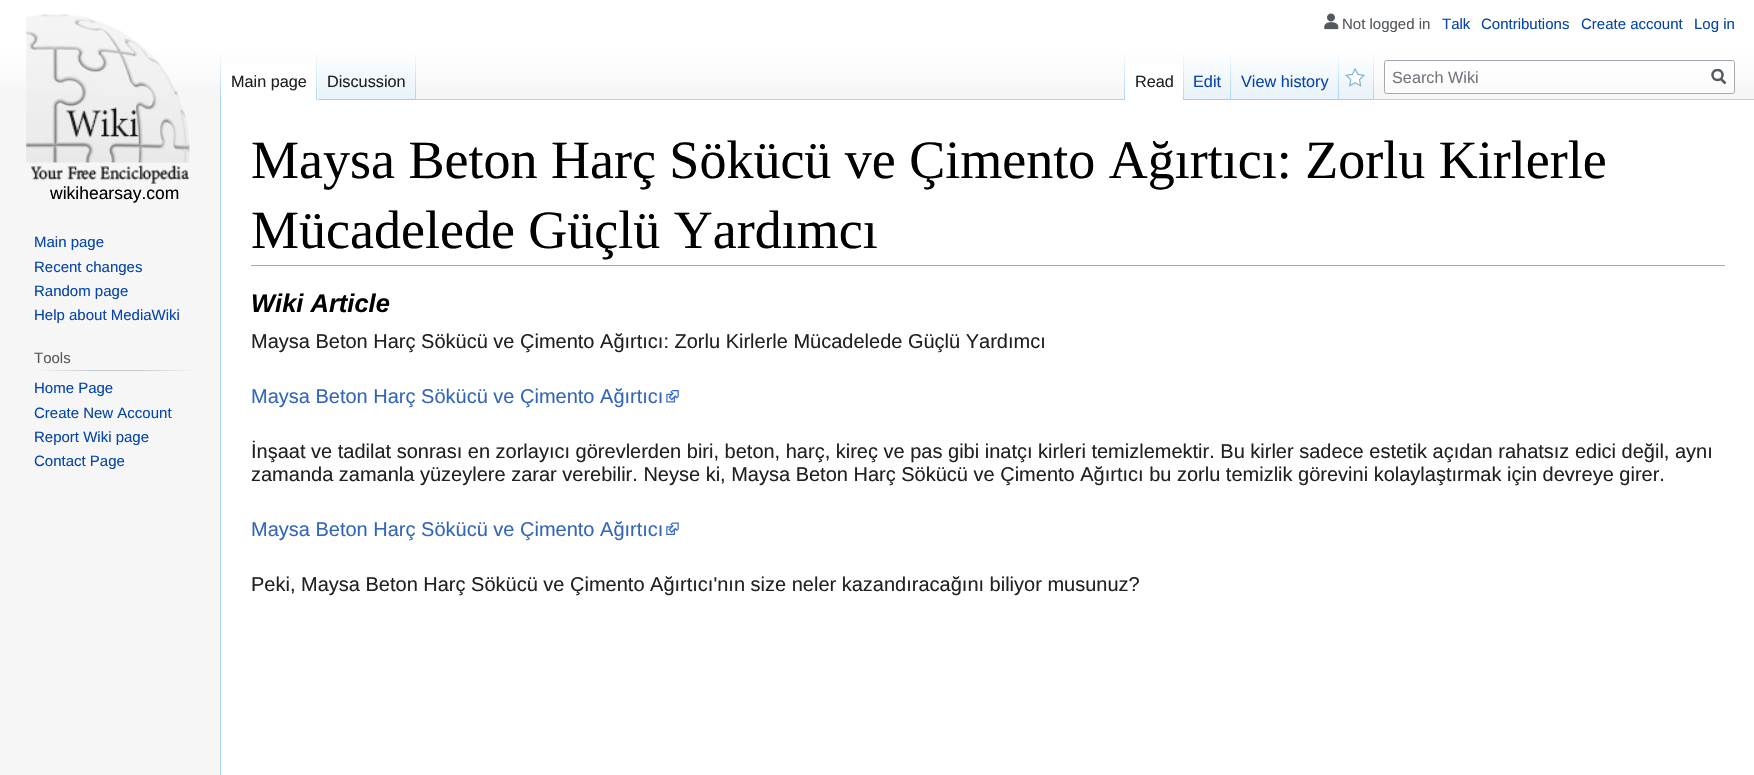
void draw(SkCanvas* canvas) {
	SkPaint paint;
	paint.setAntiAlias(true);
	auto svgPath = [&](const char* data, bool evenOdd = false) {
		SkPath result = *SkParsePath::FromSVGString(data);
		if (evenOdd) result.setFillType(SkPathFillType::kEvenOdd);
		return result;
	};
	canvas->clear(0xfff6f6f6);
	{
		const SkColor colors[] = {0xffffffff, 0xfff6f6f6};
		const float stops[] = {0.5, 1};
		const SkPoint ends[] = {{878, 0}, {878, 100}};
		paint.setShader(SkGradientShader::MakeLinear(ends, colors, stops, 2, SkTileMode::kClamp));
		paint.setAlpha(255);
	}
	canvas->drawRect(SkRect::MakeXYWH(0, 0, 1754, 86), paint);
	canvas->drawImageRect(SkImages::DeferredFromEncodedData(SkData::MakeFromFileName("img1.png")), SkRect::MakeXYWH(1324, 13, 15, 17), SkSamplingOptions());
	SkFont f1(fontMgr->matchFamilyStyle("Liberation Sans", SkFontStyle::Normal()), 15);
	f1.setSubpixel(true);
	paint.setShader(nullptr);
	paint.setColor(0xff54595d);
	canvas->drawString("Not logged in", 1342, 29, f1, paint);
	paint.setColor(0xff0645ad);
	canvas->drawString("Talk", 1442, 29, f1, paint);
	canvas->drawString("Contributions", 1481, 29, f1, paint);
	canvas->drawString("Create account", 1581, 29, f1, paint);
	canvas->drawString("Log in", 1694, 29, f1, paint);
	paint.setColor(0xffa7d7f9);
	canvas->drawRect(SkRect::MakeXYWH(220, 99, 1, 676), paint);
	{
		const SkColor colors[] = {0x00a7d7f9, 0xffa7d7f9};
		const float stops[] = {0, 1};
		const SkPoint ends[] = {{221, 50}, {221, 100}};
		paint.setShader(SkGradientShader::MakeLinear(ends, colors, stops, 2, SkTileMode::kClamp));
		paint.setAlpha(255);
	}
	canvas->drawRect(SkRect::MakeXYWH(220, 50, 1, 50), paint);
	paint.setShader(nullptr);
	paint.setColor(0xffffffff);
	canvas->drawRect(SkRect::MakeXYWH(221, 64, 97, 36), paint);
	{
		const SkColor colors[] = {0xffffffff, 0xffa7d7f9};
		const float stops[] = {0, 1};
		const SkPoint ends[] = {{317, 50}, {317, 100}};
		paint.setShader(SkGradientShader::MakeLinear(ends, colors, stops, 2, SkTileMode::kClamp));
		paint.setAlpha(255);
	}
	canvas->drawRect(SkRect::MakeXYWH(316, 50, 1, 50), paint);
	SkFont f2(fontMgr->matchFamilyStyle("Liberation Sans", SkFontStyle::Normal()), 16.25);
	f2.setSubpixel(true);
	paint.setShader(nullptr);
	paint.setColor(0xff202122);
	canvas->drawString("Main page", 231, 87, f2, paint);
	{
		const SkColor colors[] = {0xff77c1f6, 0xffe8f2f8, 0xffffffff};
		const float stops[] = {0, 0.03, 1};
		const SkPoint ends[] = {{367, 100}, {367, 50}};
		paint.setShader(SkGradientShader::MakeLinear(ends, colors, stops, 3, SkTileMode::kClamp));
		paint.setAlpha(255);
	}
	canvas->drawRect(SkRect::MakeXYWH(318, 57, 98, 43), paint);
	{
		const SkColor colors[] = {0x00a7d7f9, 0xffa7d7f9};
		const float stops[] = {0, 1};
		const SkPoint ends[] = {{416, 50}, {416, 100}};
		paint.setShader(SkGradientShader::MakeLinear(ends, colors, stops, 2, SkTileMode::kClamp));
		paint.setAlpha(255);
	}
	canvas->drawRect(SkRect::MakeXYWH(415, 50, 1, 50), paint);
	paint.setShader(nullptr);
	paint.setColor(0xff202122);
	canvas->drawString("Discussion", 327, 87, f2, paint);
	paint.setColor(0xffa7d7f9);
	canvas->drawRect(SkRect::MakeXYWH(416, 99, 1338, 1), paint);
	{
		const SkColor colors[] = {0x00a7d7f9, 0xffa7d7f9};
		const float stops[] = {0, 1};
		const SkPoint ends[] = {{1124, 50}, {1124, 100}};
		paint.setShader(SkGradientShader::MakeLinear(ends, colors, stops, 2, SkTileMode::kClamp));
		paint.setAlpha(255);
	}
	canvas->drawRect(SkRect::MakeXYWH(1124, 50, 1, 50), paint);
	paint.setShader(nullptr);
	paint.setColor(0xffffffff);
	canvas->drawRect(SkRect::MakeXYWH(1125, 64, 58, 36), paint);
	{
		const SkColor colors[] = {0xffffffff, 0xffa7d7f9};
		const float stops[] = {0, 1};
		const SkPoint ends[] = {{1183, 50}, {1183, 100}};
		paint.setShader(SkGradientShader::MakeLinear(ends, colors, stops, 2, SkTileMode::kClamp));
		paint.setAlpha(255);
	}
	canvas->drawRect(SkRect::MakeXYWH(1183, 50, 1, 50), paint);
	paint.setShader(nullptr);
	paint.setColor(0xff202122);
	canvas->drawString("Read", 1135, 87, f2, paint);
	{
		const SkColor colors[] = {0xff77c1f6, 0xffe8f2f8, 0xffffffff};
		const float stops[] = {0, 0.03, 1};
		const SkPoint ends[] = {{1208, 100}, {1208, 50}};
		paint.setShader(SkGradientShader::MakeLinear(ends, colors, stops, 3, SkTileMode::kClamp));
		paint.setAlpha(255);
	}
	canvas->drawRect(SkRect::MakeXYWH(1184, 57, 47, 43), paint);
	{
		const SkColor colors[] = {0x00a7d7f9, 0xffa7d7f9};
		const float stops[] = {0, 1};
		const SkPoint ends[] = {{1231, 50}, {1231, 100}};
		paint.setShader(SkGradientShader::MakeLinear(ends, colors, stops, 2, SkTileMode::kClamp));
		paint.setAlpha(255);
	}
	canvas->drawRect(SkRect::MakeXYWH(1230, 50, 1, 50), paint);
	paint.setShader(nullptr);
	paint.setColor(0xff0645ad);
	canvas->drawString("Edit", 1193, 87, f2, paint);
	{
		const SkColor colors[] = {0xff77c1f6, 0xffe8f2f8, 0xffffffff};
		const float stops[] = {0, 0.03, 1};
		const SkPoint ends[] = {{1285, 100}, {1285, 50}};
		paint.setShader(SkGradientShader::MakeLinear(ends, colors, stops, 3, SkTileMode::kClamp));
		paint.setAlpha(255);
	}
	canvas->drawRect(SkRect::MakeXYWH(1231, 57, 108, 43), paint);
	{
		const SkColor colors[] = {0x00a7d7f9, 0xffa7d7f9};
		const float stops[] = {0, 1};
		const SkPoint ends[] = {{1338, 50}, {1338, 100}};
		paint.setShader(SkGradientShader::MakeLinear(ends, colors, stops, 2, SkTileMode::kClamp));
		paint.setAlpha(255);
	}
	canvas->drawRect(SkRect::MakeXYWH(1338, 50, 1, 50), paint);
	paint.setShader(nullptr);
	paint.setColor(0xff0645ad);
	canvas->drawString("View history", 1241, 87, f2, paint);
	{
		const SkColor colors[] = {0xff77c1f6, 0xffe8f2f8, 0xffffffff};
		const float stops[] = {0, 0.03, 1};
		const SkPoint ends[] = {{1356, 100}, {1356, 50}};
		paint.setShader(SkGradientShader::MakeLinear(ends, colors, stops, 3, SkTileMode::kClamp));
		paint.setAlpha(255);
	}
	canvas->drawRect(SkRect::MakeXYWH(1339, 57, 35, 43), paint);
	{
		const SkColor colors[] = {0x00a7d7f9, 0xffa7d7f9};
		const float stops[] = {0, 1};
		const SkPoint ends[] = {{1373, 50}, {1373, 100}};
		paint.setShader(SkGradientShader::MakeLinear(ends, colors, stops, 2, SkTileMode::kClamp));
		paint.setAlpha(255);
	}
	canvas->drawRect(SkRect::MakeXYWH(1373, 50, 1, 50), paint);
	canvas->drawImageRect(SkImages::DeferredFromEncodedData(SkData::MakeFromFileName("img2.png")), SkRect::MakeXYWH(1345, 68, 20, 19), SkSamplingOptions());
	paint.setShader(nullptr);
	paint.setColor(0x80ffffff);
	canvas->drawRoundRect(SkRect::MakeXYWH(1384.5, 60.5, 350, 33), 2, 2, paint);
	paint.setStroke(true);
	paint.setStrokeWidth(1);
	paint.setColor(0xffa2a9b1);
	canvas->drawRoundRect(SkRect::MakeXYWH(1384.5, 60.5, 350, 33), 2, 2, paint);
	paint.setStroke(false);
	paint.setColor(0xff72777d);
	canvas->drawString("Search Wiki", 1392, 83, f2, paint);
	paint.setStroke(true);
	paint.setStrokeWidth(2.5);
	paint.setColor(0xff54595d);
	canvas->drawPath(svgPath("M1725.5 83.5L1720.5 78.5"), paint);
	canvas->save();
	canvas->clipRect(SkRect::MakeXYWH(1711, 69, 15, 16));
	canvas->drawCircle(1717.5, 75, 5, paint);
	canvas->restore();
	canvas->drawImageRect(SkImages::DeferredFromEncodedData(SkData::MakeFromFileName("img3.png")), SkRect::MakeXYWH(26, 14, 164, 170), SkSamplingOptions());
	SkFont f3(fontMgr->matchFamilyStyle("Liberation Sans", SkFontStyle::Normal()), 17.5);
	f3.setSubpixel(true);
	paint.setStroke(false);
	paint.setColor(0xff000000);
	canvas->drawString("wikihearsay.com", 50, 199, f3, paint);
	paint.setColor(0xff0645ad);
	canvas->drawString("Main page", 34, 247, f1, paint);
	canvas->drawString("Recent changes", 34, 272, f1, paint);
	canvas->drawString("Random page", 34, 296, f1, paint);
	canvas->drawString("Help about MediaWiki", 34, 320, f1, paint);
	{
		const SkColor colors[] = {0xfff6f6f6, 0xffc8ccd1, 0xffc8ccd1, 0xfff6f6f6};
		const float stops[] = {0, 0.33, 0.66, 1};
		const SkPoint ends[] = {{34, 371}, {198, 371}};
		paint.setShader(SkGradientShader::MakeLinear(ends, colors, stops, 4, SkTileMode::kClamp));
		paint.setAlpha(255);
	}
	canvas->drawRect(SkRect::MakeXYWH(34, 370, 164, 1), paint);
	paint.setShader(nullptr);
	paint.setColor(0xff54595d);
	canvas->drawString("Tools", 34, 363, f1, paint);
	paint.setColor(0xff0645ad);
	canvas->drawString("Home Page", 34, 393, f1, paint);
	canvas->drawString("Create New Account", 34, 418, f1, paint);
	canvas->drawString("Report Wiki page", 34, 442, f1, paint);
	canvas->drawString("Contact Page", 34, 466, f1, paint);
	paint.setColor(0xffffffff);
	canvas->drawRect(SkRect::MakeXYWH(221, 100, 1533, 675), paint);
	paint.setColor(0xffa2a9b1);
	canvas->drawRect(SkRect::MakeXYWH(251, 265, 1474, 1), paint);
	SkFont f4(fontMgr->matchFamilyStyle("Liberation Serif", SkFontStyle::Normal()), 54);
	f4.setSubpixel(true);
	paint.setColor(0xff000000);
	canvas->drawString("Maysa Beton Harç Sökücü ve Çimento Ağırtıcı: Zorlu Kirlerle", 251, 178, f4, paint);
	canvas->drawString("Mücadelede Güçlü Yardımcı", 251, 248, f4, paint);
	SkFont f5(fontMgr->matchFamilyStyle("Liberation Sans", SkFontStyle::BoldItalic()), 25.5);
	f5.setSubpixel(true);
	canvas->drawString("Wiki Article", 251, 312, f5, paint);
	SkFont f6(fontMgr->matchFamilyStyle("Liberation Sans", SkFontStyle::Normal()), 20);
	f6.setSubpixel(true);
	paint.setColor(0xff202122);
	canvas->drawString("Maysa Beton Harç Sökücü ve Çimento Ağırtıcı: Zorlu Kirlerle Mücadelede Güçlü Yardımcı", 251, 348, f6, paint);
	paint.setColor(0xff3366bb);
	canvas->drawString("Maysa Beton Harç Sökücü ve Çimento Ağırtıcı", 251, 403, f6, paint);
	canvas->drawImageRect(SkImages::DeferredFromEncodedData(SkData::MakeFromFileName("img4.png")), SkRect::MakeXYWH(666, 390, 13, 13), SkSamplingOptions());
	paint.setColor(0xff202122);
	canvas->drawString("İnşaat ve tadilat sonrası en zorlayıcı görevlerden biri, beton, harç, kireç ve pas gibi inatçı kirleri temizlemektir. Bu kirler sadece estetik açıdan rahatsız edici değil, aynı", 251, 458, f6, paint);
	canvas->drawString("zamanda zamanla yüzeylere zarar verebilir. Neyse ki, Maysa Beton Harç Sökücü ve Çimento Ağırtıcı bu zorlu temizlik görevini kolaylaştırmak için devreye girer.", 251, 481, f6, paint);
	paint.setColor(0xff3366bb);
	canvas->drawString("Maysa Beton Harç Sökücü ve Çimento Ağırtıcı", 251, 536, f6, paint);
	canvas->drawImageRect(SkImages::DeferredFromEncodedData(SkData::MakeFromFileName("img5.png")), SkRect::MakeXYWH(666, 522, 13, 13), SkSamplingOptions());
	paint.setColor(0xff202122);
	canvas->drawString("Peki, Maysa Beton Harç Sökücü ve Çimento Ağırtıcı'nın size neler kazandıracağını biliyor musunuz?", 251, 591, f6, paint);
}
